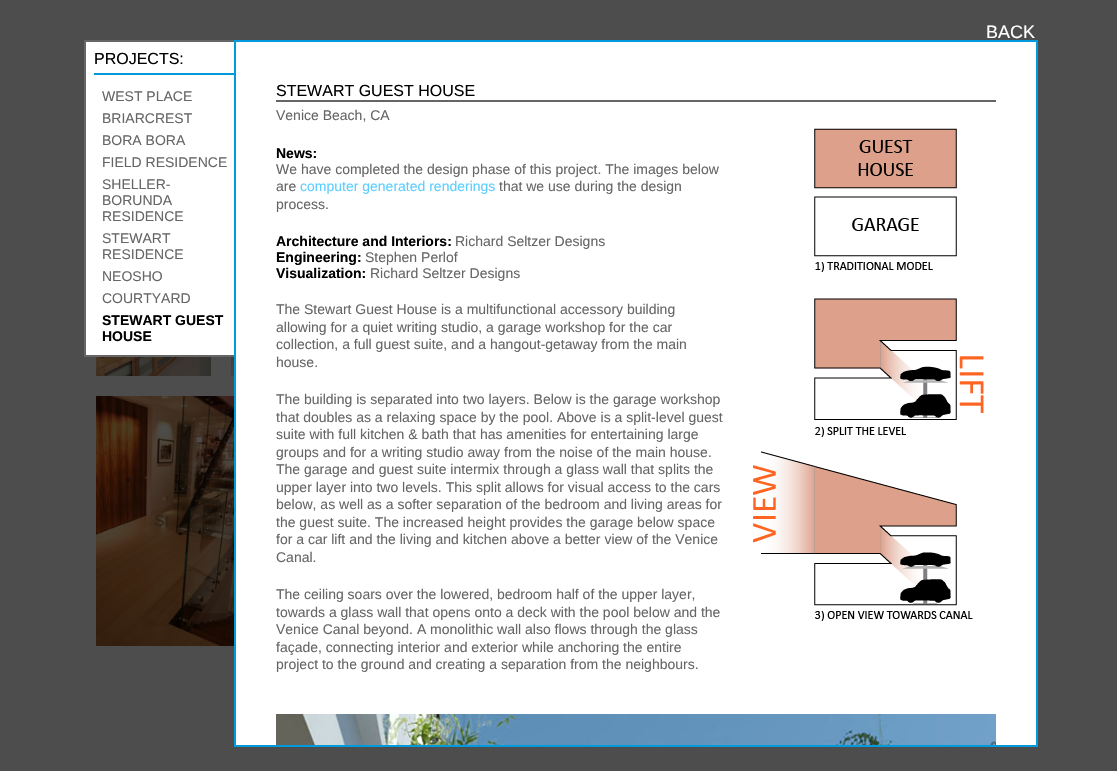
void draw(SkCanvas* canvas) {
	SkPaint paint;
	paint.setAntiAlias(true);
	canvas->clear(0xff4d4d4d);
	SkFont f1(fontMgr->matchFamilyStyle("Liberation Sans", SkFontStyle::Normal()), 18);
	f1.setSubpixel(true);
	paint.setColor(0xffffffff);
	canvas->drawString("BACK", 986, 38, f1, paint);
	canvas->drawRect(SkRect::MakeXYWH(86, 42, 148, 313), paint);
	paint.setColor(0xff666666);
	canvas->drawRect(SkRect::MakeXYWH(84, 40, 150, 2), paint);
	canvas->drawRect(SkRect::MakeXYWH(84, 355, 150, 2), paint);
	canvas->drawRect(SkRect::MakeXYWH(84, 40, 2, 317), paint);
	SkFont f2(fontMgr->matchFamilyStyle("Liberation Sans", SkFontStyle::Normal()), 16);
	f2.setSubpixel(true);
	paint.setColor(0xff000000);
	canvas->drawString("PROJECTS:", 94, 64, f2, paint);
	paint.setColor(0xff009add);
	canvas->drawRect(SkRect::MakeXYWH(94, 73, 140, 2), paint);
	SkFont f3(fontMgr->matchFamilyStyle("Liberation Sans", SkFontStyle::Normal()), 14);
	f3.setSubpixel(true);
	paint.setColor(0xff666666);
	canvas->drawString("WEST PLACE", 102, 101, f3, paint);
	canvas->drawString("BRIARCREST", 102, 123, f3, paint);
	canvas->drawString("BORA BORA", 102, 145, f3, paint);
	canvas->drawString("FIELD RESIDENCE", 102, 167, f3, paint);
	canvas->drawString("SHELLER-", 102, 189, f3, paint);
	canvas->drawString("BORUNDA", 102, 205, f3, paint);
	canvas->drawString("RESIDENCE", 102, 221, f3, paint);
	canvas->drawString("STEWART", 102, 243, f3, paint);
	canvas->drawString("RESIDENCE", 102, 259, f3, paint);
	canvas->drawString("NEOSHO", 102, 281, f3, paint);
	canvas->drawString("COURTYARD", 102, 303, f3, paint);
	SkFont f4(fontMgr->matchFamilyStyle("Liberation Sans", SkFontStyle::Bold()), 14);
	f4.setSubpixel(true);
	paint.setColor(0xff000000);
	canvas->drawString("STEWART GUEST", 102, 325, f4, paint);
	canvas->drawString("HOUSE", 102, 341, f4, paint);
	paint.setColor(0xffffffff);
	canvas->drawRect(SkRect::MakeXYWH(235, 41, 802, 705), paint);
	paint.setStroke(true);
	paint.setStrokeWidth(2);
	paint.setColor(0xff009add);
	canvas->drawRect(SkRect::MakeXYWH(235, 41, 802, 705), paint);
	paint.setStroke(false);
	paint.setColor(0xff666666);
	canvas->drawRect(SkRect::MakeXYWH(276, 100, 720, 2), paint);
	paint.setColor(0xff000000);
	canvas->drawString("STEWART GUEST HOUSE", 276, 96, f2, paint);
	paint.setColor(0xff666666);
	canvas->drawString("Venice Beach, CA", 276, 120, f3, paint);
	paint.setColor(0xff000000);
	canvas->drawString("News:", 276, 158, f4, paint);
	canvas->drawImageRect(SkImages::DeferredFromEncodedData(SkData::MakeFromFileName("img1.png")), SkRect::MakeXYWH(753, 128, 231, 493), SkSamplingOptions());
	paint.setColor(0xff666666);
	canvas->drawString("We have completed the design phase of this project. The images below", 276, 174, f3, paint);
	canvas->drawString("are", 276, 191, f3, paint);
	paint.setColor(0xff5cceff);
	canvas->drawString("computer generated renderings", 300, 191, f3, paint);
	paint.setColor(0xff666666);
	canvas->drawString("that we use during the design", 499, 191, f3, paint);
	canvas->drawString("process.", 276, 209, f3, paint);
	paint.setColor(0xff000000);
	canvas->drawString("Architecture and Interiors:", 276, 246, f4, paint);
	paint.setColor(0xff666666);
	canvas->drawString("Richard Seltzer Designs", 455, 246, f3, paint);
	paint.setColor(0xff000000);
	canvas->drawString("Engineering:", 276, 262, f4, paint);
	paint.setColor(0xff666666);
	canvas->drawString("Stephen Perlof", 365, 262, f3, paint);
	paint.setColor(0xff000000);
	canvas->drawString("Visualization:", 276, 278, f4, paint);
	paint.setColor(0xff666666);
	canvas->drawString("Richard Seltzer Designs", 370, 278, f3, paint);
	canvas->drawString("The Stewart Guest House is a multifunctional accessory building", 276, 314, f3, paint);
	canvas->drawString("allowing for a quiet writing studio, a garage workshop for the car", 276, 332, f3, paint);
	canvas->drawString("collection, a full guest suite, and a hangout-getaway from the main", 276, 349, f3, paint);
	canvas->drawString("house.", 276, 367, f3, paint);
	canvas->drawString("The building is separated into two layers. Below is the garage workshop", 276, 404, f3, paint);
	canvas->drawString("that doubles as a relaxing space by the pool. Above is a split-level guest", 276, 422, f3, paint);
	canvas->drawString("suite with full kitchen & bath that has amenities for entertaining large", 276, 439, f3, paint);
	canvas->drawString("groups and for a writing studio away from the noise of the main house.", 276, 457, f3, paint);
	canvas->drawString("The garage and guest suite intermix through a glass wall that splits the", 276, 474, f3, paint);
	canvas->drawString("upper layer into two levels. This split allows for visual access to the cars", 276, 492, f3, paint);
	canvas->drawString("below, as well as a softer separation of the bedroom and living areas for", 276, 509, f3, paint);
	canvas->drawString("the guest suite. The increased height provides the garage below space", 276, 527, f3, paint);
	canvas->drawString("for a car lift and the living and kitchen above a better view of the Venice", 276, 544, f3, paint);
	canvas->drawString("Canal.", 276, 562, f3, paint);
	canvas->drawString("The ceiling soars over the lowered, bedroom half of the upper layer,", 276, 599, f3, paint);
	canvas->drawString("towards a glass wall that opens onto a deck with the pool below and the", 276, 617, f3, paint);
	canvas->drawString("Venice Canal beyond. A monolithic wall also flows through the glass", 276, 634, f3, paint);
	canvas->drawString("façade, connecting interior and exterior while anchoring the entire", 276, 652, f3, paint);
	canvas->drawString("project to the ground and creating a separation from the neighbours.", 276, 669, f3, paint);
	canvas->drawImageRect(SkImages::DeferredFromEncodedData(SkData::MakeFromFileName("img2.png")), SkRect::MakeXYWH(276, 714, 720, 31), SkSamplingOptions());
	canvas->drawImageRect(SkImages::DeferredFromEncodedData(SkData::MakeFromFileName("img3.png")), SkRect::MakeXYWH(96, 357, 115, 19), SkSamplingOptions());
	canvas->drawImageRect(SkImages::DeferredFromEncodedData(SkData::MakeFromFileName("img4.png")), SkRect::MakeXYWH(231, 357, 3, 19), SkSamplingOptions());
	canvas->drawImageRect(SkImages::DeferredFromEncodedData(SkData::MakeFromFileName("img5.png")), SkRect::MakeXYWH(96, 396, 138, 250), SkSamplingOptions());
	paint.setColor(0xff2e2217);
	canvas->drawString("St", 154, 526, f2, paint);
	canvas->drawString("e", 224, 526, f2, paint);
}
